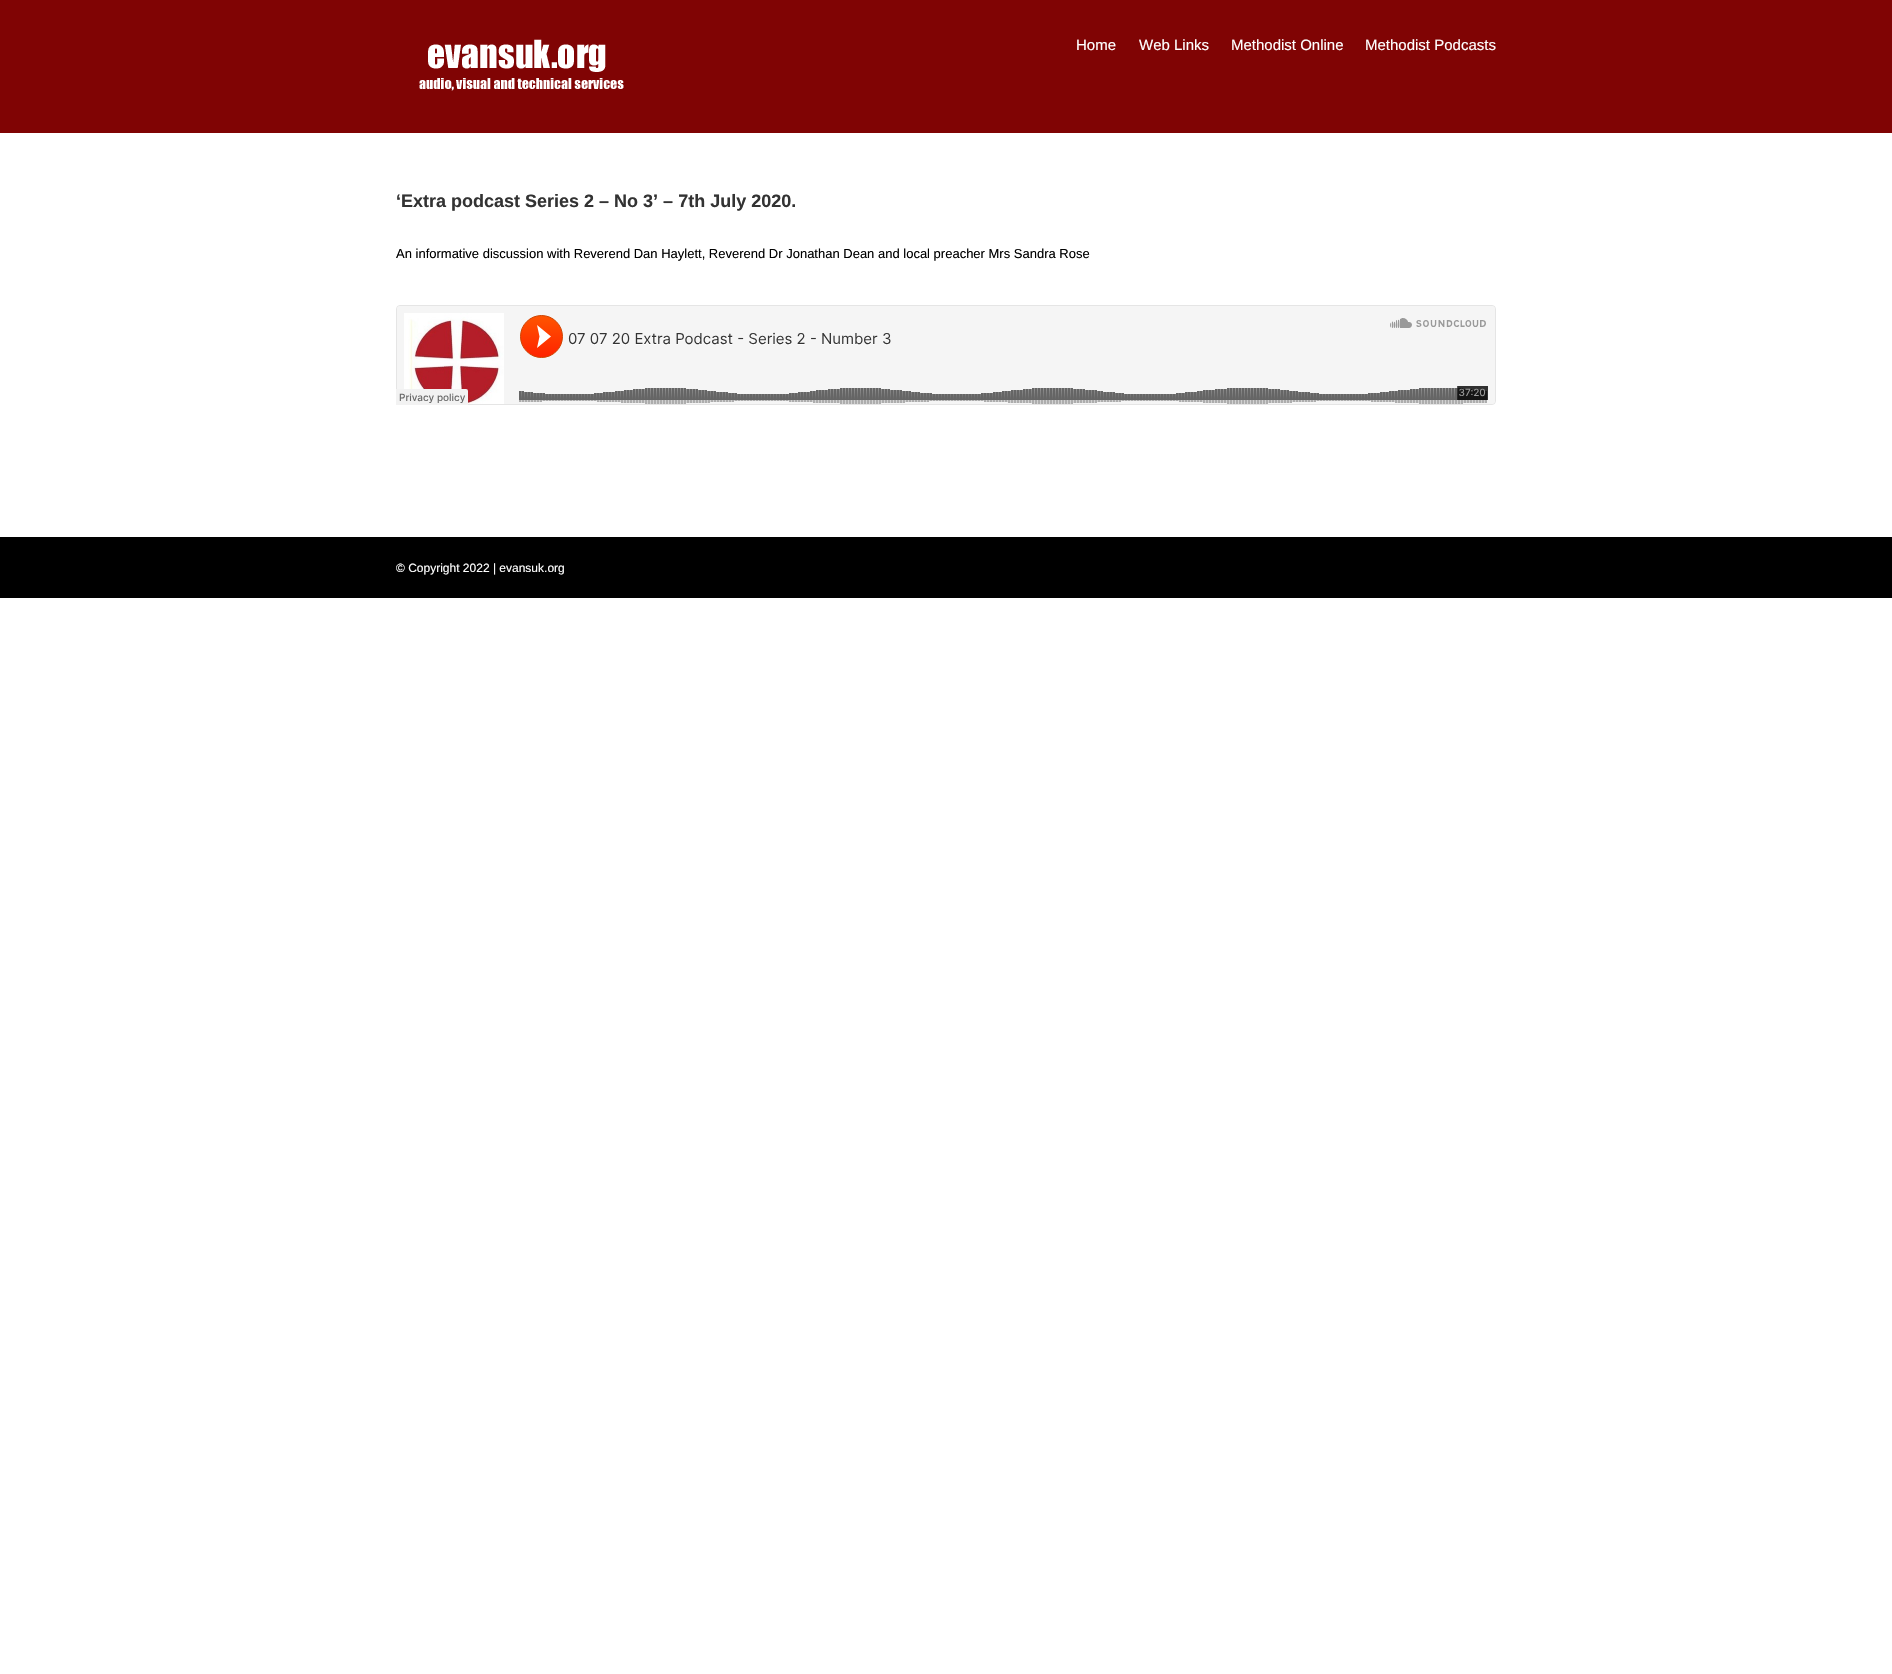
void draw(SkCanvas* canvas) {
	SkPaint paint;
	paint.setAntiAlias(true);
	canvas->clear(0xffffffff);
	paint.setColor(0xff800404);
	canvas->drawRect(SkRect::MakeXYWH(0, 0, 1892, 133), paint);
	canvas->drawImageRect(SkImages::DeferredFromEncodedData(SkData::MakeFromFileName("img1.png")), SkRect::MakeXYWH(419, 39, 205, 52), SkSamplingOptions());
	SkFont f1(fontMgr->matchFamilyStyle("Liberation Sans", SkFontStyle::Normal()), 15);
	f1.setSubpixel(true);
	paint.setColor(0xffffffff);
	canvas->drawString("Home", 1076, 50, f1, paint);
	canvas->drawString("Web Links", 1139, 50, f1, paint);
	canvas->drawString("Methodist Online", 1231, 50, f1, paint);
	canvas->drawString("Methodist Podcasts", 1365, 50, f1, paint);
	SkFont f2(fontMgr->matchFamilyStyle("Liberation Sans", SkFontStyle::Bold()), 18);
	f2.setSubpixel(true);
	paint.setColor(0xff333333);
	canvas->drawString("‘Extra podcast Series 2 – No 3’ – 7th July 2020.", 396, 207, f2, paint);
	SkFont f3(fontMgr->matchFamilyStyle("Liberation Sans", SkFontStyle::Normal()), 13);
	f3.setSubpixel(true);
	paint.setColor(0xff000000);
	canvas->drawString("An informative discussion with Reverend Dan Haylett, Reverend Dr Jonathan Dean and local preacher Mrs Sandra Rose", 396, 258, f3, paint);
	canvas->drawImageRect(SkImages::DeferredFromEncodedData(SkData::MakeFromFileName("img2.png")), SkRect::MakeXYWH(396, 305, 1100, 100), SkSamplingOptions());
	canvas->drawRect(SkRect::MakeXYWH(0, 537, 1892, 61), paint);
	SkFont f4(fontMgr->matchFamilyStyle("Liberation Sans", SkFontStyle::Normal()), 12);
	f4.setSubpixel(true);
	paint.setColor(0xffffffff);
	canvas->drawString("© Copyright 2022 | evansuk.org", 396, 572, f4, paint);
}
